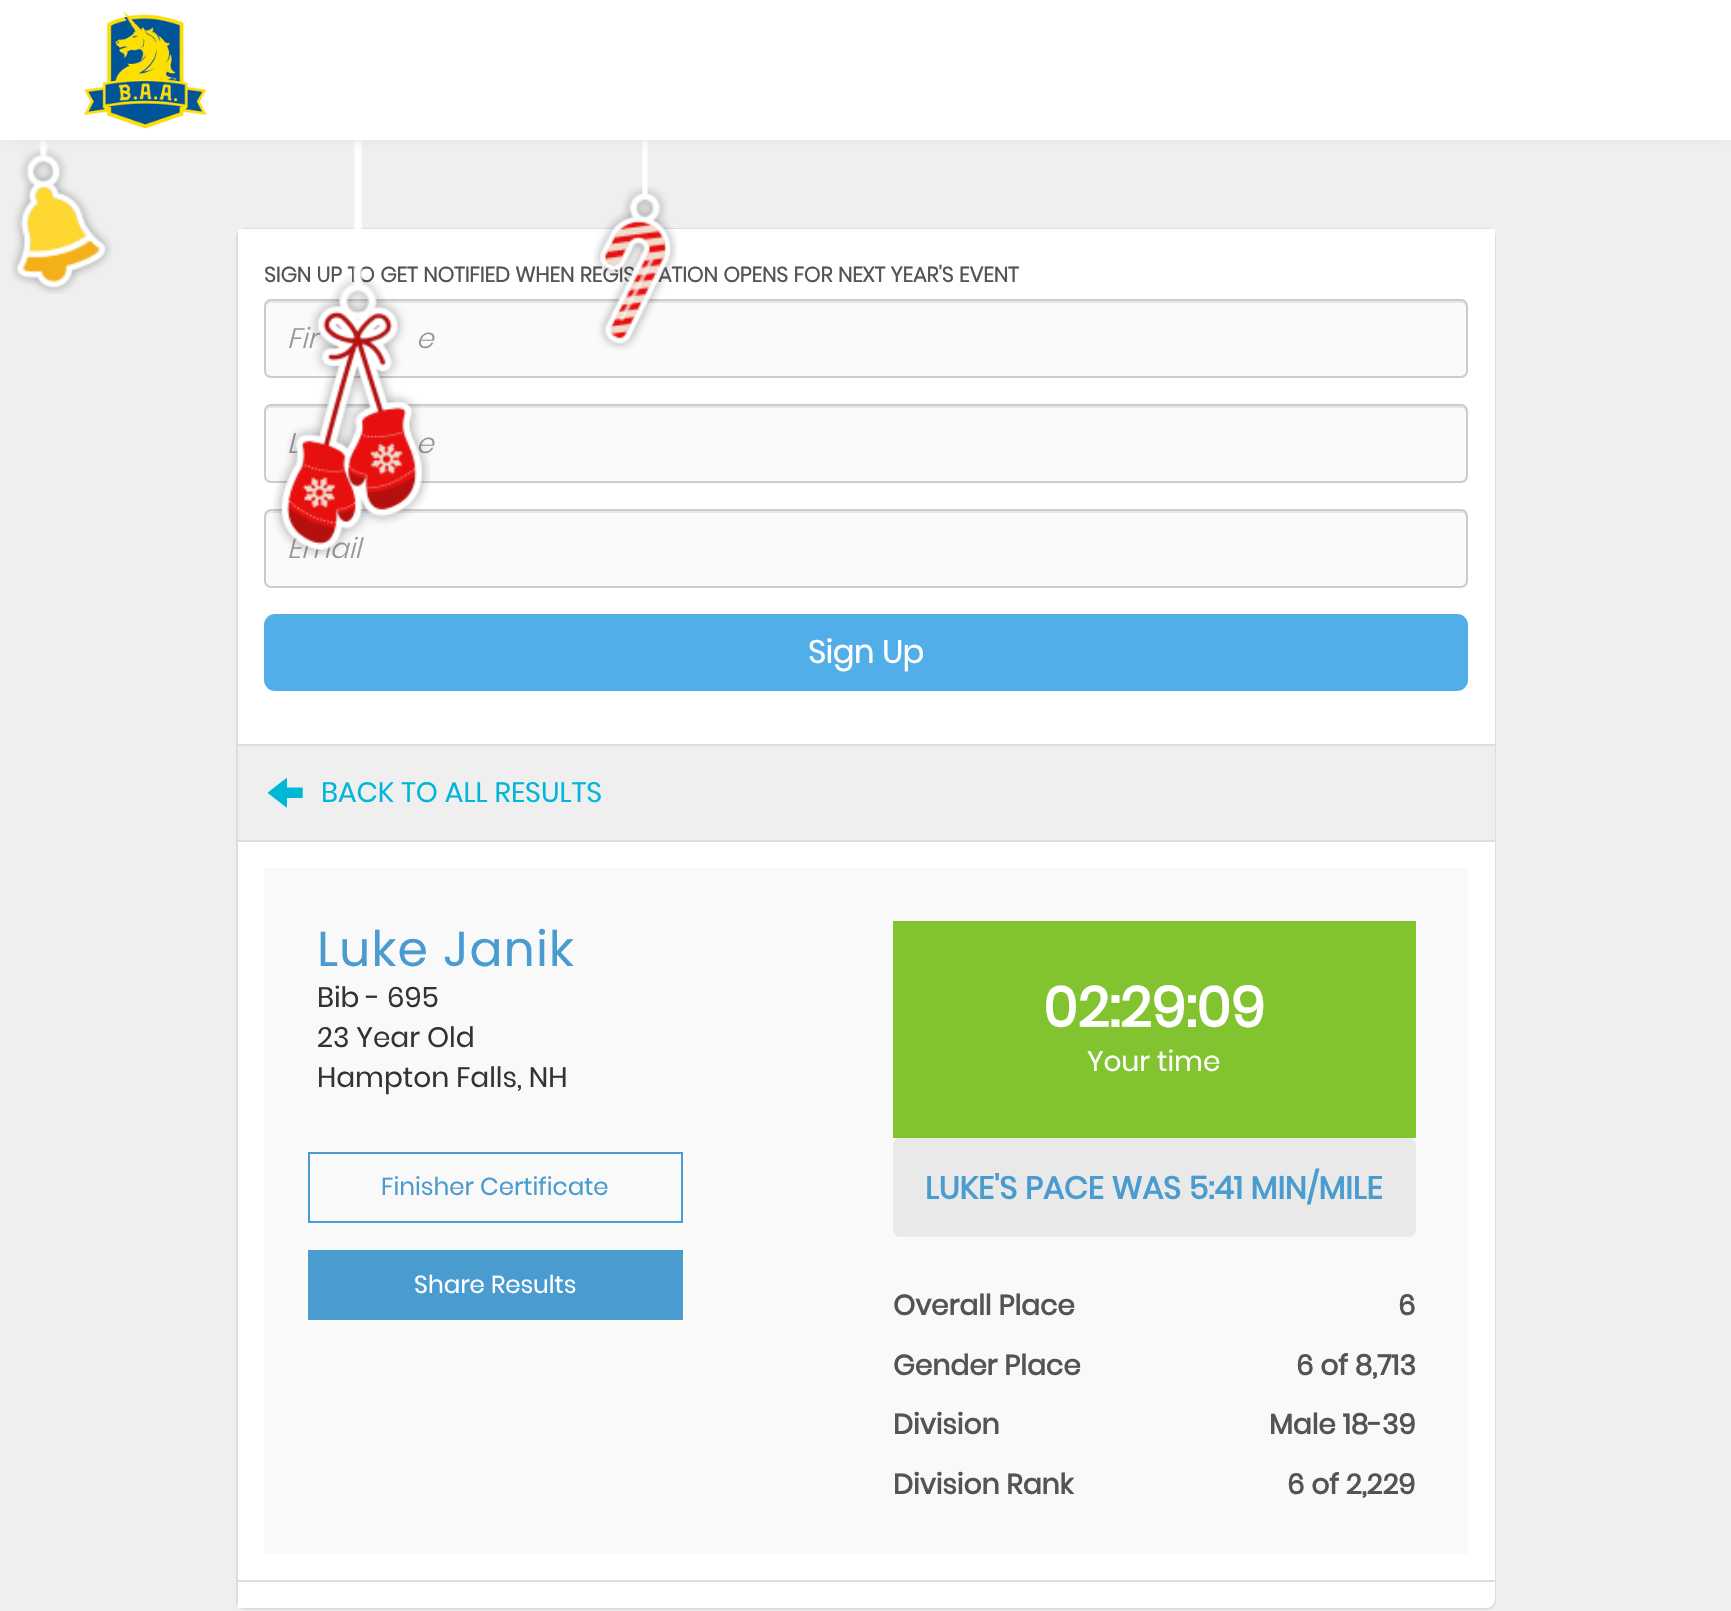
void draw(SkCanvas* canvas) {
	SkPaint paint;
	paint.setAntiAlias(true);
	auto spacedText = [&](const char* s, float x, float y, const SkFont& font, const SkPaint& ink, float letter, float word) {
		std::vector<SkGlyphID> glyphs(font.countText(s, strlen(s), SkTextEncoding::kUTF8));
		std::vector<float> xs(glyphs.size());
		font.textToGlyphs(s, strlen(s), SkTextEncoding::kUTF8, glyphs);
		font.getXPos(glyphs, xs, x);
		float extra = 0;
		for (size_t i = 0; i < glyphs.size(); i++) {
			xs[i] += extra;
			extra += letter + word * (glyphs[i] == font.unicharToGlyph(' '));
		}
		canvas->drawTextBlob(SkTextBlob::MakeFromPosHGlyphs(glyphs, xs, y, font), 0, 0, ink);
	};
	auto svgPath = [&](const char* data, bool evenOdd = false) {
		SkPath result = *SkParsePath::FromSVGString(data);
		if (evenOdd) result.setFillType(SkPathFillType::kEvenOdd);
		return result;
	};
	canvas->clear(0xffefefef);
	paint.setColor(0xfffafafa);
	canvas->drawRoundRect(SkRect::MakeXYWH(237, 229, 1258, 1380), 8, 8, paint);
	paint.setStroke(true);
	paint.setStrokeWidth(2);
	paint.setColor(0xffdddddd);
	canvas->drawRoundRect(SkRect::MakeXYWH(237, 229, 1258, 1380), 8, 8, paint);
	paint.setStroke(false);
	paint.setColor(0xffffffff);
	canvas->drawPath(svgPath("M238 229H1486C1491 229 1495 233 1495 238V1599C1495 1604 1491 1608 1486 1608H238Z"), paint);
	SkFont f1(fontMgr->matchFamilyStyle("Poppins", SkFontStyle::Bold()), 21);
	f1.setSubpixel(true);
	paint.setColor(0xff545454);
	canvas->drawString("SIGN UP TO GET NOTIFIED WHEN REGIS", 264, 282, f1, paint);
	canvas->drawString("ATION OPENS FOR NEXT YEAR'S EVENT", 658, 282, f1, paint);
	paint.setColor(0xfffafafa);
	canvas->drawRoundRect(SkRect::MakeXYWH(264, 299, 1204, 79), 7, 7, paint);
	paint.setColor(0xffe7e7e7);
	canvas->drawPath(svgPath("M271 303H1461C1464 303 1466 305 1466 308V374C1467 373 1467 372 1467 371V306C1467 303 1465 301 1462 301H271C268 301 266 303 266 306V308C266 305 268 303 271 303Z"), paint);
	paint.setStroke(true);
	paint.setColor(0xffcccccc);
	canvas->drawRoundRect(SkRect::MakeXYWH(265, 300, 1202, 77), 6, 6, paint);
	SkFont f2(fontMgr->matchFamilyStyle("Poppins", SkFontStyle(300, SkFontStyle::kNormal_Width, SkFontStyle::kItalic_Slant)), 28);
	f2.setSubpixel(true);
	paint.setStroke(false);
	paint.setColor(0xff999999);
	canvas->drawString("Fir", 287, 348, f2, paint);
	canvas->drawString("e", 416, 348, f2, paint);
	paint.setColor(0xfffafafa);
	canvas->drawRoundRect(SkRect::MakeXYWH(264, 404, 1204, 79), 7, 7, paint);
	paint.setColor(0xffe7e7e7);
	canvas->drawPath(svgPath("M271 408H1461C1464 408 1466 410 1466 413V479C1467 478 1467 477 1467 476V411C1467 408 1465 406 1462 406H271C268 406 266 408 266 411V413C266 410 268 408 271 408Z"), paint);
	paint.setStroke(true);
	paint.setColor(0xffcccccc);
	canvas->drawRoundRect(SkRect::MakeXYWH(265, 405, 1202, 77), 6, 6, paint);
	paint.setStroke(false);
	paint.setColor(0xff999999);
	canvas->drawString("L", 287, 453, f2, paint);
	canvas->drawString("e", 416, 453, f2, paint);
	paint.setColor(0xfffafafa);
	canvas->drawRoundRect(SkRect::MakeXYWH(264, 509, 1204, 79), 7, 7, paint);
	paint.setColor(0xffe7e7e7);
	canvas->drawPath(svgPath("M271 513H1461C1464 513 1466 515 1466 518V584C1467 583 1467 582 1467 581V516C1467 513 1465 511 1462 511H271C268 511 266 513 266 516V518C266 515 268 513 271 513Z"), paint);
	paint.setStroke(true);
	paint.setColor(0xffcccccc);
	canvas->drawRoundRect(SkRect::MakeXYWH(265, 510, 1202, 77), 6, 6, paint);
	paint.setStroke(false);
	paint.setColor(0xff999999);
	canvas->drawString("Email", 287, 558, f2, paint);
	canvas->drawImageRect(SkImages::DeferredFromEncodedData(SkData::MakeFromFileName("img2.png")), SkRect::MakeXYWH(11, 140, 666, 417), SkSamplingOptions());
	paint.setColor(0xffe1e1e1);
	paint.setMaskFilter(SkMaskFilter::MakeBlur(kNormal_SkBlurStyle, 5));
	canvas->drawRect(SkRect::MakeXYWH(11, 21, 1711, 119), paint);
	paint.setMaskFilter(nullptr);
	paint.setColor(0xffffffff);
	canvas->drawRect(SkRect::MakeXYWH(0, 0, 1731, 140), paint);
	canvas->drawImageRect(SkImages::DeferredFromEncodedData(SkData::MakeFromFileName("img1.png")), SkRect::MakeXYWH(84, 11, 123, 118), SkSamplingOptions());
	canvas->drawRect(SkRect::MakeXYWH(1487, 229, 8, 8), paint);
	paint.setColor(0xffdddddd);
	canvas->drawRect(SkRect::MakeXYWH(238, 744, 1257, 2), paint);
	paint.setColor(0xff52aee8);
	canvas->drawRoundRect(SkRect::MakeXYWH(264, 614, 1204, 77), 11, 11, paint);
	SkFont f3(fontMgr->matchFamilyStyle("Poppins", SkFontStyle::Bold()), 31.5);
	f3.setSubpixel(true);
	paint.setColor(0xffffffff);
	canvas->drawString("Sign Up", 808, 663, f3, paint);
	paint.setColor(0xffefefef);
	canvas->drawRect(SkRect::MakeXYWH(238, 746, 1257, 94), paint);
	paint.setColor(0xffdddddd);
	canvas->drawRect(SkRect::MakeXYWH(238, 840, 1257, 2), paint);
	canvas->drawImageRect(SkImages::DeferredFromEncodedData(SkData::MakeFromFileName("img3.png")), SkRect::MakeXYWH(267, 778, 36, 30), SkSamplingOptions());
	SkFont f4(fontMgr->matchFamilyStyle("Poppins", SkFontStyle::Normal()), 28);
	f4.setSubpixel(true);
	paint.setColor(0xff00b7d8);
	canvas->drawString("BACK TO ALL RESULTS", 321, 802, f4, paint);
	paint.setColor(0xffdddddd);
	canvas->drawRect(SkRect::MakeXYWH(238, 1580, 1257, 2), paint);
	paint.setColor(0xfff9f9f9);
	canvas->drawRect(SkRect::MakeXYWH(264, 868, 1204, 686), paint);
	SkFont f5(fontMgr->matchFamilyStyle("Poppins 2", SkFontStyle::Normal()), 49);
	f5.setSubpixel(true);
	paint.setColor(0xff499bd0);
	spacedText("Luke Janik", 317, 966, f5, paint, 0.9, 0);
	paint.setColor(0xff333333);
	canvas->drawString("Bib - 695", 317, 1007, f4, paint);
	canvas->drawString("23 Year Old", 317, 1047, f4, paint);
	canvas->drawString("Hampton Falls, NH", 317, 1087, f4, paint);
	paint.setStroke(true);
	paint.setColor(0xff499bd0);
	canvas->drawRect(SkRect::MakeXYWH(309, 1153, 373, 69), paint);
	SkFont f6(fontMgr->matchFamilyStyle("Poppins", SkFontStyle::Normal()), 24.5);
	f6.setSubpixel(true);
	paint.setStroke(false);
	canvas->drawString("Finisher Certificate", 381, 1195, f6, paint);
	canvas->drawRect(SkRect::MakeXYWH(308, 1250, 375, 70), paint);
	paint.setColor(0xffffffff);
	canvas->drawString("Share Results", 414, 1293, f6, paint);
	paint.setColor(0xff82c330);
	canvas->drawRect(SkRect::MakeXYWH(893, 921, 523, 217), paint);
	SkFont f7(fontMgr->matchFamilyStyle("Poppins 2", SkFontStyle::Bold()), 56);
	f7.setSubpixel(true);
	paint.setColor(0xffffffff);
	canvas->drawString("02:29:09", 1043, 1027, f7, paint);
	canvas->drawString("Your time", 1087, 1071, f4, paint);
	paint.setColor(0xffe9e9e9);
	canvas->drawRoundRect(SkRect::MakeXYWH(893, 1138, 523, 99), 7, 7, paint);
	SkFont f8(fontMgr->matchFamilyStyle("Poppins 2", SkFontStyle::Bold()), 31.5);
	f8.setSubpixel(true);
	paint.setColor(0xff499bd0);
	canvas->drawString("LUKE'S PACE WAS 5:41 MIN/MILE", 925, 1199, f8, paint);
	SkFont f9(fontMgr->matchFamilyStyle("Poppins 2", SkFontStyle::Bold()), 28);
	f9.setSubpixel(true);
	paint.setColor(0xff545454);
	canvas->drawString("Overall Place", 893, 1315, f9, paint);
	canvas->drawString("6", 1398, 1315, f9, paint);
	canvas->drawString("Gender Place", 893, 1375, f9, paint);
	canvas->drawString("6 of 8,713", 1296, 1375, f9, paint);
	canvas->drawString("Division", 893, 1434, f9, paint);
	canvas->drawString("Male 18-39", 1269, 1434, f9, paint);
	canvas->drawString("Division Rank", 893, 1494, f9, paint);
	canvas->drawString("6 of 2,229", 1287, 1494, f9, paint);
}
